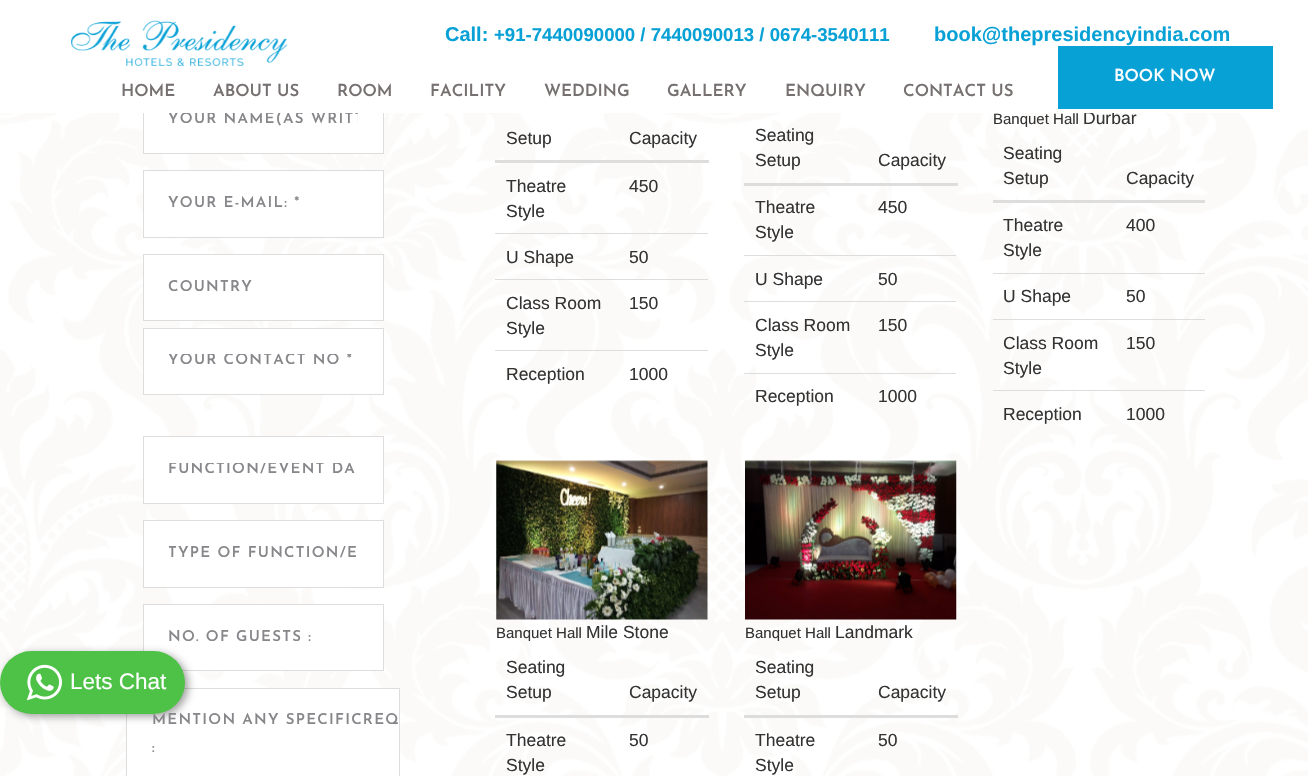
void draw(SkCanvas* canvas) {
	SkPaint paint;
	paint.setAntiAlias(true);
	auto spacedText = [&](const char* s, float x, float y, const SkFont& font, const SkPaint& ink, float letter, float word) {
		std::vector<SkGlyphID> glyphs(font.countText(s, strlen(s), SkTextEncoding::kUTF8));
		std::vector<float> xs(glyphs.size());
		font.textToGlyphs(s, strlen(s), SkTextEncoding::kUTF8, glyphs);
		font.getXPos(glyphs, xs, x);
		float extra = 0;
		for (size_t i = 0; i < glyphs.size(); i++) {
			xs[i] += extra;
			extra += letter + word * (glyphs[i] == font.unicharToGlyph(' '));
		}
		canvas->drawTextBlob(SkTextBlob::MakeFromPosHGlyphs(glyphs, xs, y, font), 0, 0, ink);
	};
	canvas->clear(0xffffffff);
	canvas->drawImageRect(SkImages::DeferredFromEncodedData(SkData::MakeFromFileName("img3.png")), SkRect::MakeXYWH(0, 113, 1308, 663), SkSamplingOptions());
	paint.setColor(0xffffffff);
	canvas->drawRect(SkRect::MakeXYWH(143.5, 604.5, 240, 66), paint);
	paint.setStroke(true);
	paint.setStrokeWidth(1);
	paint.setColor(0xffdddddd);
	canvas->drawRect(SkRect::MakeXYWH(143.5, 604.5, 240, 66), paint);
	paint.setStroke(false);
	paint.setColor(0xffffffff);
	canvas->drawRect(SkRect::MakeXYWH(126.5, 688.5, 273, 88), paint);
	paint.setStroke(true);
	paint.setColor(0xffdddddd);
	canvas->drawRect(SkRect::MakeXYWH(126.5, 688.5, 273, 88), paint);
	paint.setStroke(false);
	paint.setColor(0x66000000);
	paint.setMaskFilter(SkMaskFilter::MakeBlur(kNormal_SkBlurStyle, 4));
	canvas->drawRoundRect(SkRect::MakeXYWH(3, 654, 185, 62), 31, 31, paint);
	paint.setMaskFilter(nullptr);
	SkFont f1(fontMgr->matchFamilyStyle("Josefin Sans", SkFontStyle(600, SkFontStyle::kNormal_Width, SkFontStyle::kUpright_Slant)), 15);
	f1.setSubpixel(true);
	paint.setColor(0xff87868a);
	spacedText("MENTION ANY SPECIFICREQ", 152, 724, f1, paint, 1.25, 0);
	paint.setColor(0xff4dc247);
	canvas->drawRoundRect(SkRect::MakeXYWH(0, 651, 185, 63), 31.5, 31.5, paint);
	canvas->drawImageRect(SkImages::DeferredFromEncodedData(SkData::MakeFromFileName("img1.png")), SkRect::MakeXYWH(26, 664, 36, 37), SkSamplingOptions());
	SkFont f2(fontMgr->matchFamilyStyle("Liberation Sans", SkFontStyle::Normal()), 22.5);
	f2.setSubpixel(true);
	paint.setColor(0xffffffff);
	canvas->drawString("Lets Chat", 70, 689, f2, paint);
	canvas->drawRect(SkRect::MakeXYWH(144, 113, 239, 40), paint);
	paint.setStroke(true);
	paint.setColor(0xffdddddd);
	canvas->drawRect(SkRect::MakeXYWH(143.5, 86.5, 240, 67), paint);
	SkFont f3(fontMgr->matchFamilyStyle("Liberation Sans", SkFontStyle::Normal()), 17.5);
	f3.setSubpixel(true);
	paint.setStroke(false);
	paint.setColor(0xff333333);
	canvas->drawString("Durbar", 1083, 124, f3, paint);
	paint.setColor(0xffffffff);
	canvas->drawRect(SkRect::MakeXYWH(143, 86, 972, 27), paint);
	canvas->drawImageRect(SkImages::DeferredFromEncodedData(SkData::MakeFromFileName("img2.png")), SkRect::MakeXYWH(71, 20, 217, 46), SkSamplingOptions());
	SkFont f4(fontMgr->matchFamilyStyle("Liberation Sans", SkFontStyle::Bold()), 20);
	f4.setSubpixel(true);
	paint.setColor(0xff08a1d6);
	canvas->drawString("Call:", 445, 41, f4, paint);
	SkFont f5(fontMgr->matchFamilyStyle("Liberation Sans", SkFontStyle::Bold()), 18.6);
	f5.setSubpixel(true);
	canvas->drawString("+91-7440090000 / 7440090013 / 0674-3540111", 494, 41, f5, paint);
	canvas->drawString("book@thepresidencyindia.com", 934, 41, f4, paint);
	canvas->drawRect(SkRect::MakeXYWH(1058, 46, 215, 63), paint);
	SkFont f6(fontMgr->matchFamilyStyle("Josefin Sans", SkFontStyle(600, SkFontStyle::kNormal_Width, SkFontStyle::kUpright_Slant)), 16.75);
	f6.setSubpixel(true);
	paint.setColor(0xffffffff);
	canvas->drawString("BOOK NOW", 1114, 81, f6, paint);
	paint.setColor(0xff767070);
	canvas->drawString("HOME", 121, 96, f6, paint);
	canvas->drawString("ABOUT US", 213, 96, f6, paint);
	canvas->drawString("ROOM", 337, 96, f6, paint);
	canvas->drawString("FACILITY", 430, 96, f6, paint);
	canvas->drawString("WEDDING", 544, 96, f6, paint);
	canvas->drawString("GALLERY", 667, 96, f6, paint);
	canvas->drawString("ENQUIRY", 785, 96, f6, paint);
	canvas->drawString("CONTACT US", 903, 96, f6, paint);
	canvas->save();
	canvas->clipRect(SkRect::MakeXYWH(169, 113, 189, 15));
	paint.setColor(0xff87868a);
	spacedText("YOUR NAME(AS WRITT", 168, 123, f1, paint, 1.25, 0);
	canvas->restore();
	paint.setColor(0xffffffff);
	canvas->drawRect(SkRect::MakeXYWH(143.5, 170.5, 240, 67), paint);
	paint.setStroke(true);
	paint.setColor(0xffdddddd);
	canvas->drawRect(SkRect::MakeXYWH(143.5, 170.5, 240, 67), paint);
	paint.setStroke(false);
	paint.setColor(0xff87868a);
	spacedText("YOUR E-MAIL: *", 168, 207, f1, paint, 1.25, 0);
	paint.setColor(0xffffffff);
	canvas->drawRect(SkRect::MakeXYWH(143.5, 254.5, 240, 66), paint);
	paint.setStroke(true);
	paint.setColor(0xffdddddd);
	canvas->drawRect(SkRect::MakeXYWH(143.5, 254.5, 240, 66), paint);
	paint.setStroke(false);
	paint.setColor(0xff87868a);
	spacedText("COUNTRY", 168, 291, f1, paint, 1.25, 0);
	paint.setColor(0xffffffff);
	canvas->drawRect(SkRect::MakeXYWH(144, 329, 229, 65), paint);
	paint.setStroke(true);
	paint.setColor(0xffdddddd);
	canvas->drawRect(SkRect::MakeXYWH(143.5, 328.5, 240, 66), paint);
	canvas->save();
	canvas->clipRect(SkRect::MakeXYWH(169, 354, 189, 15));
	paint.setStroke(false);
	paint.setColor(0xff87868a);
	spacedText("YOUR CONTACT NO *", 168, 364, f1, paint, 1.25, 0);
	canvas->restore();
	paint.setColor(0xffffffff);
	canvas->drawRect(SkRect::MakeXYWH(143.5, 436.5, 240, 67), paint);
	paint.setStroke(true);
	paint.setColor(0xffdddddd);
	canvas->drawRect(SkRect::MakeXYWH(143.5, 436.5, 240, 67), paint);
	canvas->save();
	canvas->clipRect(SkRect::MakeXYWH(169, 463, 189, 15));
	paint.setStroke(false);
	paint.setColor(0xff87868a);
	spacedText("FUNCTION/EVENT DA", 168, 473, f1, paint, 1.25, 0);
	canvas->restore();
	paint.setColor(0xffffffff);
	canvas->drawRect(SkRect::MakeXYWH(143.5, 520.5, 240, 67), paint);
	paint.setStroke(true);
	paint.setColor(0xffdddddd);
	canvas->drawRect(SkRect::MakeXYWH(143.5, 520.5, 240, 67), paint);
	canvas->save();
	canvas->clipRect(SkRect::MakeXYWH(169, 546, 189, 15));
	paint.setStroke(false);
	paint.setColor(0xff87868a);
	spacedText("TYPE OF FUNCTION/E", 168, 557, f1, paint, 1.25, 0);
	canvas->restore();
	spacedText("NO. OF GUESTS :", 168, 641, f1, paint, 1.25, 0);
	spacedText(":", 152, 752, f1, paint, 1.25, 0);
	paint.setColor(0xff333333);
	canvas->drawString("Setup", 506, 144, f3, paint);
	paint.setColor(0xffdddddd);
	canvas->drawRect(SkRect::MakeXYWH(495, 160, 214, 3), paint);
	paint.setColor(0xff333333);
	canvas->drawString("Capacity", 629, 144, f3, paint);
	canvas->drawString("Theatre", 506, 192, f3, paint);
	canvas->drawString("Style", 506, 217, f3, paint);
	canvas->drawString("450", 629, 192, f3, paint);
	canvas->drawString("U Shape", 506, 263, f3, paint);
	paint.setColor(0xffdddddd);
	canvas->drawRect(SkRect::MakeXYWH(495, 233, 213, 1), paint);
	paint.setColor(0xff333333);
	canvas->drawString("50", 629, 263, f3, paint);
	canvas->drawString("Class Room", 506, 309, f3, paint);
	canvas->drawString("Style", 506, 334, f3, paint);
	paint.setColor(0xffdddddd);
	canvas->drawRect(SkRect::MakeXYWH(495, 279, 213, 1), paint);
	paint.setColor(0xff333333);
	canvas->drawString("150", 629, 309, f3, paint);
	canvas->drawString("Reception", 506, 380, f3, paint);
	paint.setColor(0xffdddddd);
	canvas->drawRect(SkRect::MakeXYWH(495, 350, 213, 1), paint);
	paint.setColor(0xff333333);
	canvas->drawString("1000", 629, 380, f3, paint);
	canvas->drawString("Seating", 755, 141, f3, paint);
	canvas->drawString("Setup", 755, 166, f3, paint);
	paint.setColor(0xffdddddd);
	canvas->drawRect(SkRect::MakeXYWH(744, 183, 214, 3), paint);
	paint.setColor(0xff333333);
	canvas->drawString("Capacity", 878, 166, f3, paint);
	canvas->drawString("Theatre", 755, 213, f3, paint);
	canvas->drawString("Style", 755, 238, f3, paint);
	canvas->drawString("450", 878, 213, f3, paint);
	canvas->drawString("U Shape", 755, 285, f3, paint);
	paint.setColor(0xffdddddd);
	canvas->drawRect(SkRect::MakeXYWH(744, 255, 212, 1), paint);
	paint.setColor(0xff333333);
	canvas->drawString("50", 878, 285, f3, paint);
	canvas->drawString("Class Room", 755, 331, f3, paint);
	canvas->drawString("Style", 755, 356, f3, paint);
	paint.setColor(0xffdddddd);
	canvas->drawRect(SkRect::MakeXYWH(744, 301, 212, 1), paint);
	paint.setColor(0xff333333);
	canvas->drawString("150", 878, 331, f3, paint);
	canvas->drawString("Reception", 755, 402, f3, paint);
	paint.setColor(0xffdddddd);
	canvas->drawRect(SkRect::MakeXYWH(744, 373, 212, 1), paint);
	paint.setColor(0xff333333);
	canvas->drawString("1000", 878, 402, f3, paint);
	SkFont f7(fontMgr->matchFamilyStyle("Liberation Sans", SkFontStyle::Normal()), 15);
	f7.setSubpixel(true);
	canvas->drawString("Banquet Hall", 993, 124, f7, paint);
	canvas->drawString("Seating", 1003, 159, f3, paint);
	canvas->drawString("Setup", 1003, 184, f3, paint);
	paint.setColor(0xffdddddd);
	canvas->drawRect(SkRect::MakeXYWH(993, 200, 212, 3), paint);
	paint.setColor(0xff333333);
	canvas->drawString("Capacity", 1126, 184, f3, paint);
	canvas->drawString("Theatre", 1003, 231, f3, paint);
	canvas->drawString("Style", 1003, 256, f3, paint);
	canvas->drawString("400", 1126, 231, f3, paint);
	canvas->drawString("U Shape", 1003, 302, f3, paint);
	paint.setColor(0xffdddddd);
	canvas->drawRect(SkRect::MakeXYWH(993, 273, 212, 1), paint);
	paint.setColor(0xff333333);
	canvas->drawString("50", 1126, 302, f3, paint);
	canvas->drawString("Class Room", 1003, 349, f3, paint);
	canvas->drawString("Style", 1003, 374, f3, paint);
	paint.setColor(0xffdddddd);
	canvas->drawRect(SkRect::MakeXYWH(993, 319, 212, 1), paint);
	paint.setColor(0xff333333);
	canvas->drawString("150", 1126, 349, f3, paint);
	canvas->drawString("Reception", 1003, 420, f3, paint);
	paint.setColor(0xffdddddd);
	canvas->drawRect(SkRect::MakeXYWH(993, 390, 212, 1), paint);
	paint.setColor(0xff333333);
	canvas->drawString("1000", 1126, 420, f3, paint);
	canvas->drawImageRect(SkImages::DeferredFromEncodedData(SkData::MakeFromFileName("img4.png")), SkRect::MakeXYWH(496, 460, 212, 160), SkSamplingOptions());
	canvas->drawString("Banquet Hall", 496, 638, f7, paint);
	canvas->drawString("Mile Stone", 586, 638, f3, paint);
	canvas->drawString("Seating", 506, 673, f3, paint);
	canvas->drawString("Setup", 506, 698, f3, paint);
	paint.setColor(0xffdddddd);
	canvas->drawRect(SkRect::MakeXYWH(495, 715, 214, 3), paint);
	paint.setColor(0xff333333);
	canvas->drawString("Capacity", 629, 698, f3, paint);
	canvas->drawString("Theatre", 506, 746, f3, paint);
	canvas->drawString("Style", 506, 771, f3, paint);
	canvas->drawString("50", 629, 746, f3, paint);
	canvas->drawImageRect(SkImages::DeferredFromEncodedData(SkData::MakeFromFileName("img5.png")), SkRect::MakeXYWH(745, 460, 212, 160), SkSamplingOptions());
	canvas->drawString("Banquet Hall", 745, 638, f7, paint);
	canvas->drawString("Landmark", 835, 638, f3, paint);
	canvas->drawString("Seating", 755, 673, f3, paint);
	canvas->drawString("Setup", 755, 698, f3, paint);
	paint.setColor(0xffdddddd);
	canvas->drawRect(SkRect::MakeXYWH(744, 715, 214, 3), paint);
	paint.setColor(0xff333333);
	canvas->drawString("Capacity", 878, 698, f3, paint);
	canvas->drawString("Theatre", 755, 746, f3, paint);
	canvas->drawString("Style", 755, 771, f3, paint);
	canvas->drawString("50", 878, 746, f3, paint);
}
